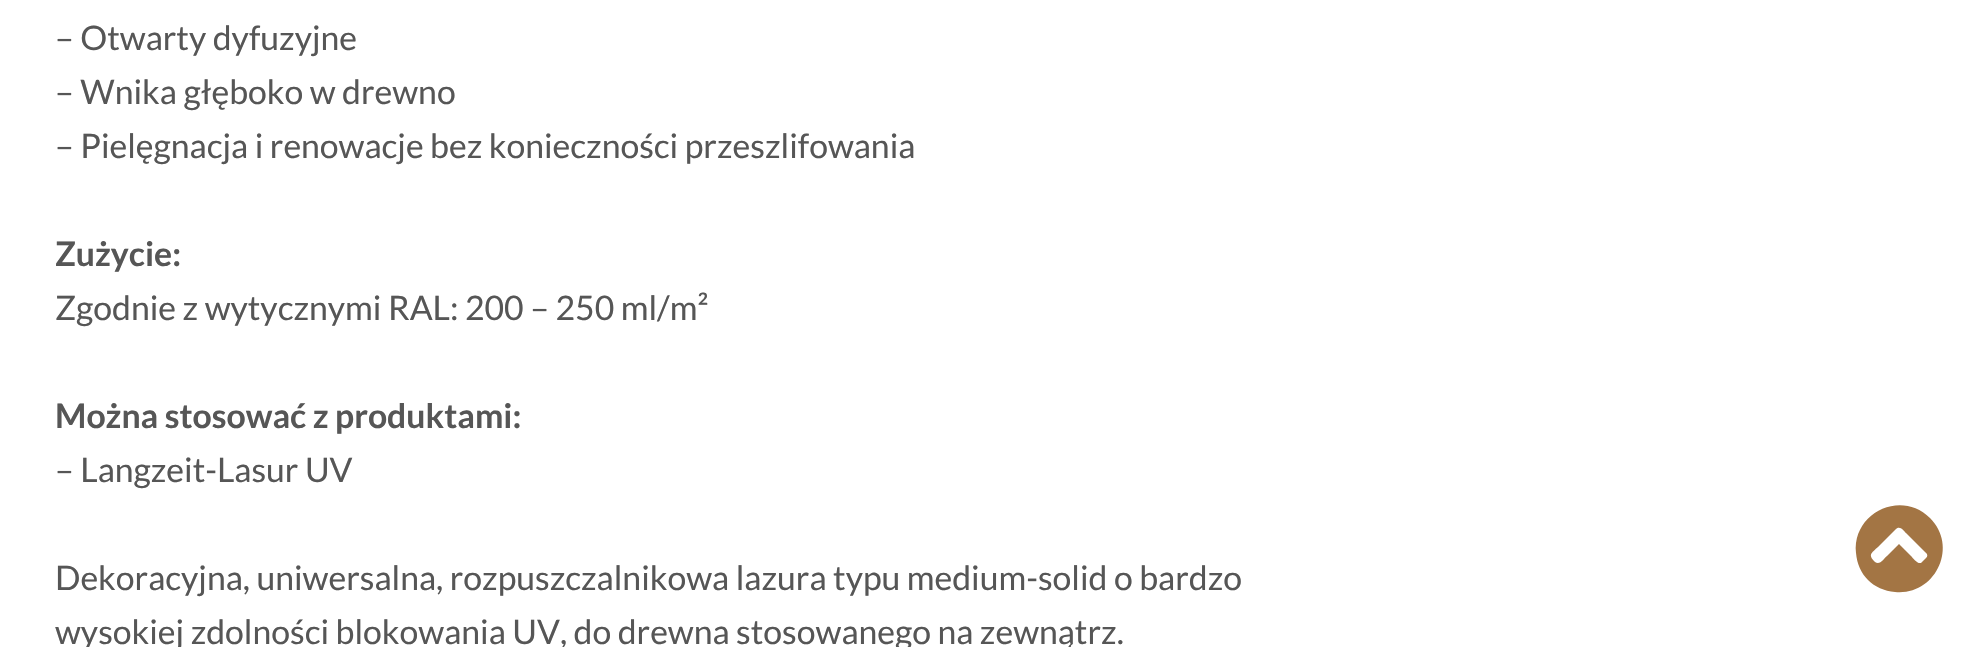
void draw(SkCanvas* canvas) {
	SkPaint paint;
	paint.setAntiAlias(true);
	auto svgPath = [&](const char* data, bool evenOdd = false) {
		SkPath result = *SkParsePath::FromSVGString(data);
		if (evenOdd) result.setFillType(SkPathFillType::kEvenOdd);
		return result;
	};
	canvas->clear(0xffffffff);
	SkFont f1(fontMgr->matchFamilyStyle("Lato", SkFontStyle::Normal()), 33.75);
	f1.setSubpixel(true);
	paint.setColor(0xff565656);
	canvas->drawString("– Otwarty dyfuzyjne", 55, 50, f1, paint);
	canvas->drawString("– Wnika głęboko w drewno", 55, 104, f1, paint);
	canvas->drawString("– Pielęgnacja i renowacje bez konieczności przeszlifowania", 55, 158, f1, paint);
	SkFont f2(fontMgr->matchFamilyStyle("Lato", SkFontStyle::Bold()), 33.75);
	f2.setSubpixel(true);
	canvas->drawString("Zużycie:", 55, 266, f2, paint);
	canvas->drawString("Zgodnie z wytycznymi RAL: 200 – 250 ml/m²", 55, 320, f1, paint);
	canvas->drawString("Można stosować z produktami:", 55, 428, f2, paint);
	canvas->drawString("– Langzeit-Lasur UV", 55, 482, f1, paint);
	canvas->drawString("Dekoracyjna, uniwersalna, rozpuszczalnikowa lazura typu medium-solid o bardzo", 55, 590, f1, paint);
	canvas->drawString("wysokiej zdolności blokowania UV, do drewna stosowanego na zewnątrz.", 55, 644, f1, paint);
	paint.setColor(0xffa37544);
	canvas->drawPath(svgPath("M1868 580C1861 573 1857 564 1856 553C1852 513 1901 489 1930 518C1959 547 1935 596 1895 592C1884 591 1875 587 1868 580ZM1896 529L1880 545C1872 553 1867 554 1875 562C1880 566 1884 558 1887 556L1899 544L1911 556C1913 558 1917 564 1921 563L1924 560C1930 555 1927 554 1922 549L1906 533C1904 531 1900 525 1896 529Z"), paint);
}
